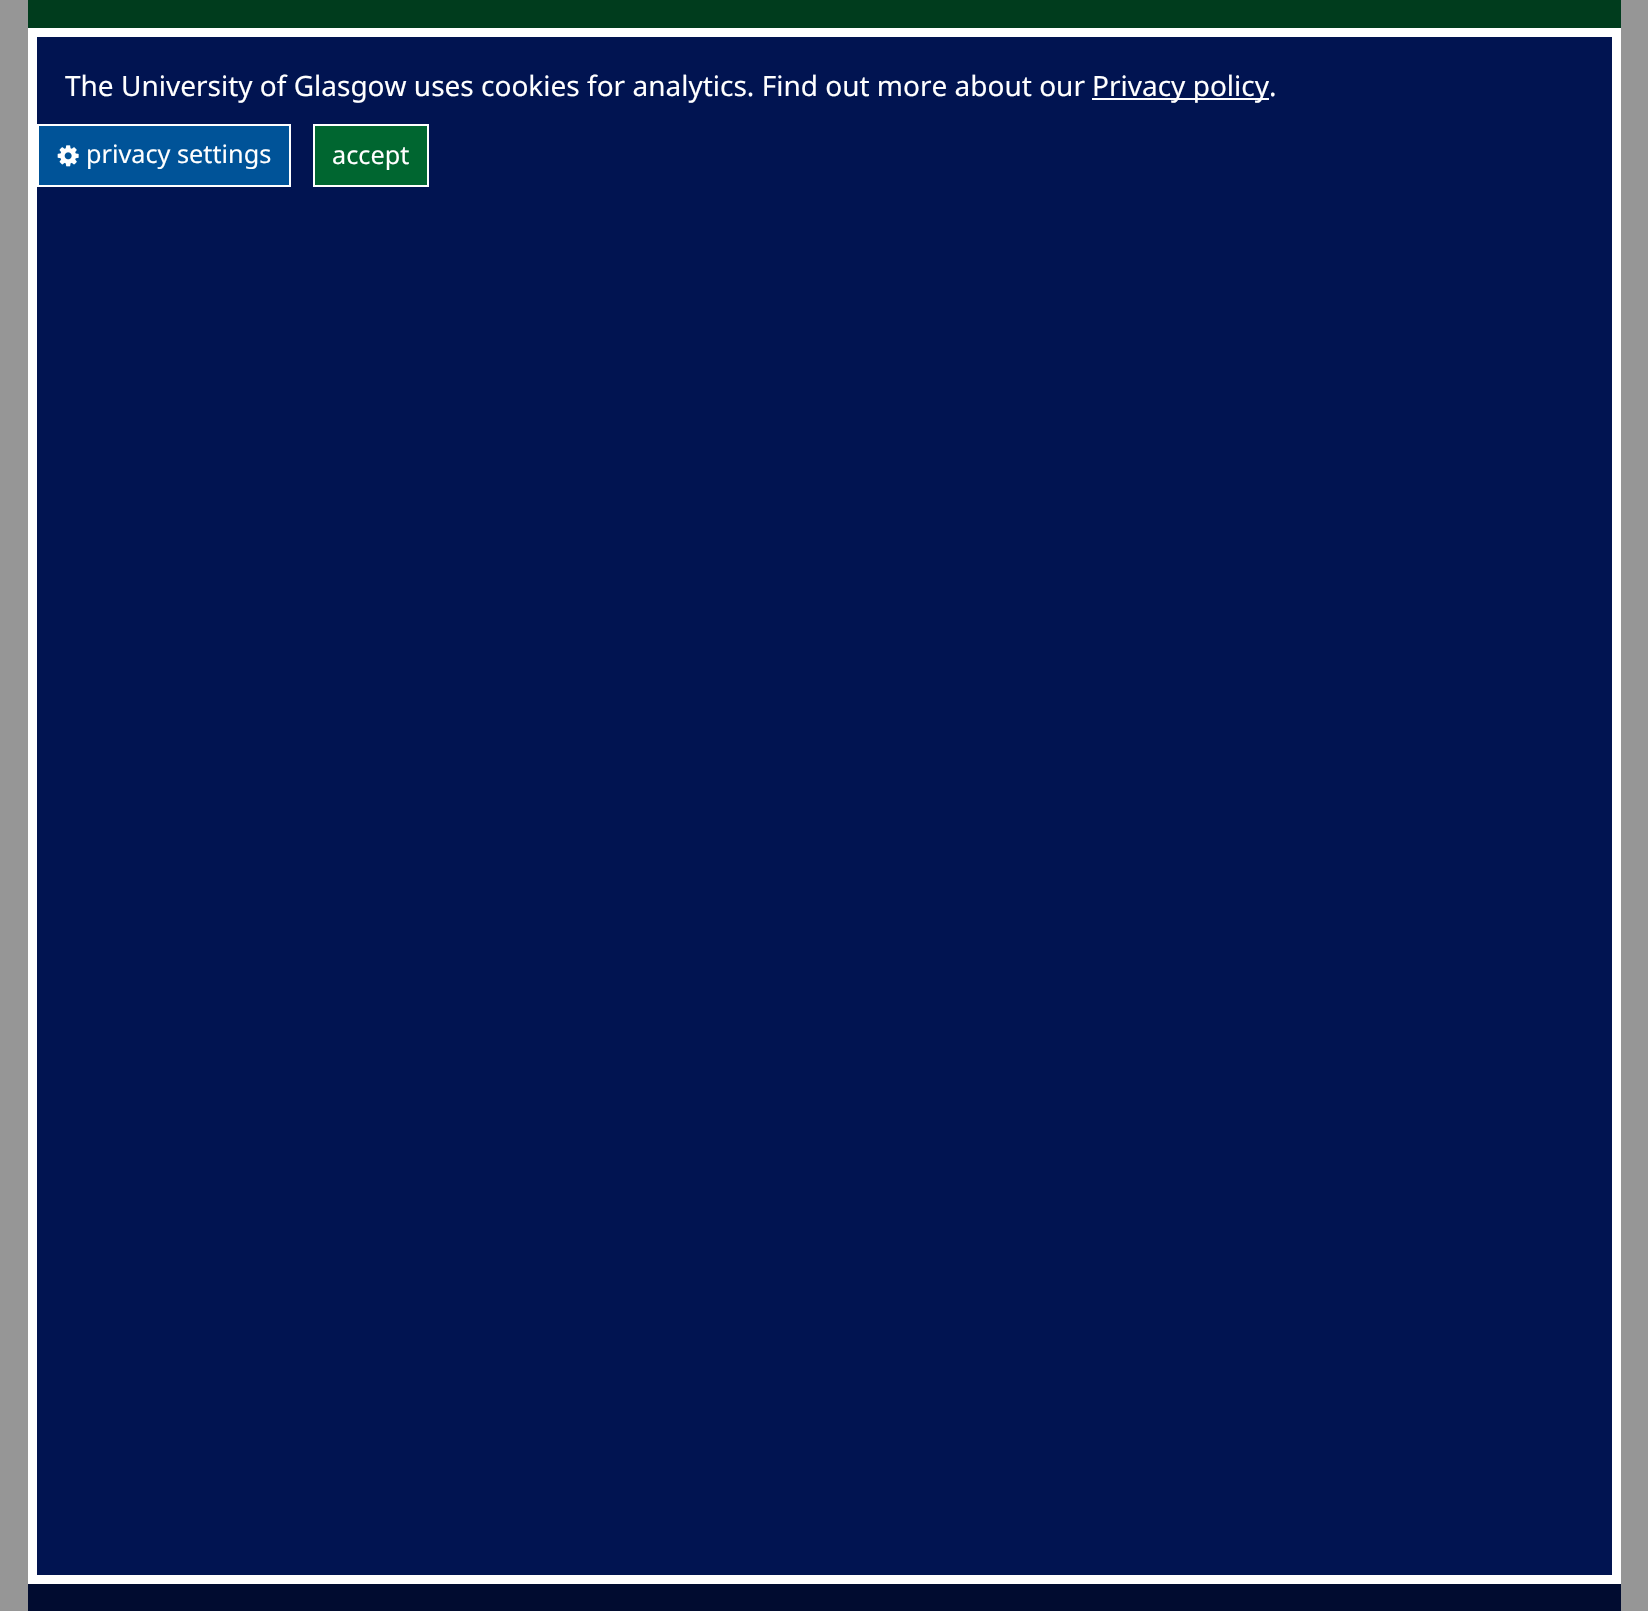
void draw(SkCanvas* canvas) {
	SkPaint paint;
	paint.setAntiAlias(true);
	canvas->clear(0xffffffff);
	paint.setColor(0xff006630);
	canvas->drawRect(SkRect::MakeXYWH(28, 0, 1593, 28), paint);
	paint.setColor(0xff011451);
	canvas->drawRect(SkRect::MakeXYWH(28, 1584, 1593, 27), paint);
	paint.setColor(0x69000000);
	paint.setMaskFilter(SkMaskFilter::MakeBlur(kNormal_SkBlurStyle, 16.5));
	canvas->drawRect(SkRect::MakeXYWH(-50, -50, 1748, 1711), paint);
	paint.setMaskFilter(nullptr);
	paint.setColor(0xff011451);
	canvas->drawRect(SkRect::MakeXYWH(32.5, 32.5, 1584, 1547), paint);
	paint.setStroke(true);
	paint.setStrokeWidth(9);
	paint.setColor(0xffffffff);
	canvas->drawRect(SkRect::MakeXYWH(32.5, 32.5, 1584, 1547), paint);
	SkFont f1(fontMgr->matchFamilyStyle("Noto Sans", SkFontStyle::Normal()), 28);
	f1.setSubpixel(true);
	paint.setStroke(false);
	canvas->drawString("The University of Glasgow uses cookies for analytics. Find out more about our", 65, 96, f1, paint);
	canvas->drawRect(SkRect::MakeXYWH(1092, 98, 177, 2), paint);
	canvas->drawString("Privacy policy.", 1092, 96, f1, paint);
	paint.setColor(0xff005398);
	canvas->drawRect(SkRect::MakeXYWH(38, 125, 252, 61), paint);
	paint.setStroke(true);
	paint.setStrokeWidth(2);
	paint.setColor(0xffffffff);
	canvas->drawRect(SkRect::MakeXYWH(38, 125, 252, 61), paint);
	canvas->drawImageRect(SkImages::DeferredFromEncodedData(SkData::MakeFromFileName("img1.png")), SkRect::MakeXYWH(57, 145, 22, 22), SkSamplingOptions());
	SkFont f2(fontMgr->matchFamilyStyle("Noto Sans", SkFontStyle::Normal()), 25.25);
	f2.setSubpixel(true);
	paint.setStroke(false);
	canvas->drawString("privacy settings", 86, 163, f2, paint);
	paint.setColor(0xff006630);
	canvas->drawRect(SkRect::MakeXYWH(314, 125, 114, 61), paint);
	paint.setStroke(true);
	paint.setColor(0xffffffff);
	canvas->drawRect(SkRect::MakeXYWH(314, 125, 114, 61), paint);
	paint.setStroke(false);
	canvas->drawString("accept", 332, 164, f2, paint);
}
